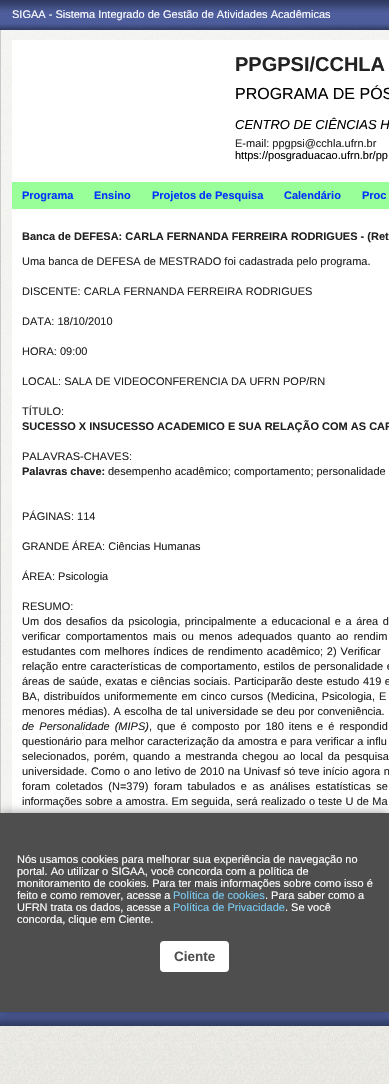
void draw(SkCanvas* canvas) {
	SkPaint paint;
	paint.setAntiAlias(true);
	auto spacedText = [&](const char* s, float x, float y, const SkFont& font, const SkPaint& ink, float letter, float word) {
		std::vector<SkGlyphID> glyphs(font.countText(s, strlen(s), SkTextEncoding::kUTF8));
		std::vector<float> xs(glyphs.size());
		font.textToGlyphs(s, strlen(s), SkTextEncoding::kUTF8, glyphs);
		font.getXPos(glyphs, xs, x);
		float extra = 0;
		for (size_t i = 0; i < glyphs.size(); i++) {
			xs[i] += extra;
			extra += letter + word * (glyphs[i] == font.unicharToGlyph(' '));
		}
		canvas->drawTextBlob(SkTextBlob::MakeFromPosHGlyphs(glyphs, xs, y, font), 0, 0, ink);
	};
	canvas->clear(0xffffffff);
	canvas->drawImageRect(SkImages::DeferredFromEncodedData(SkData::MakeFromFileName("img1.png")), SkRect::MakeXYWH(0, 1026, 389, 58), SkSamplingOptions());
	canvas->drawImageRect(SkImages::DeferredFromEncodedData(SkData::MakeFromFileName("img2.png")), SkRect::MakeXYWH(0, 0, 389, 30), SkSamplingOptions());
	canvas->drawImageRect(SkImages::DeferredFromEncodedData(SkData::MakeFromFileName("img3.png")), SkRect::MakeXYWH(0, 1012, 389, 14), SkSamplingOptions());
	SkFont f1(fontMgr->matchFamilyStyle("Liberation Sans", SkFontStyle::Normal()), 11);
	f1.setSubpixel(true);
	paint.setColor(0xffffffff);
	canvas->drawString("SIGAA - Sistema Integrado de Gestão de Atividades Acadêmicas", 12, 18, f1, paint);
	canvas->drawImageRect(SkImages::DeferredFromEncodedData(SkData::MakeFromFileName("img4.png")), SkRect::MakeXYWH(1, 30, 388, 783), SkSamplingOptions());
	paint.setColor(0xffcacac7);
	canvas->drawRect(SkRect::MakeXYWH(0, 30, 1, 783), paint);
	paint.setColor(0xffffffff);
	canvas->drawRect(SkRect::MakeXYWH(12, 40, 377, 773), paint);
	SkFont f2(fontMgr->matchFamilyStyle("Liberation Sans", SkFontStyle::Bold()), 20);
	f2.setSubpixel(true);
	paint.setColor(0xff222222);
	canvas->drawString("PPGPSI/CCHLA", 235, 71, f2, paint);
	SkFont f3(fontMgr->matchFamilyStyle("Liberation Sans", SkFontStyle::Normal()), 16);
	f3.setSubpixel(true);
	paint.setColor(0xff000000);
	canvas->drawString("PROGRAMA DE PÓS", 235, 99, f3, paint);
	SkFont f4(fontMgr->matchFamilyStyle("Liberation Sans", SkFontStyle::Italic()), 13);
	f4.setSubpixel(true);
	canvas->drawString("CENTRO DE CIÊNCIAS H", 235, 129, f4, paint);
	paint.setColor(0xff222222);
	canvas->drawString("E-mail: ppgpsi@cchla.ufrn.br", 235, 147, f1, paint);
	paint.setColor(0xff000000);
	canvas->drawString("https://posgraduacao.ufrn.br/pp", 235, 159, f1, paint);
	paint.setColor(0xff99ff99);
	canvas->drawRect(SkRect::MakeXYWH(12, 182, 377, 27), paint);
	SkFont f5(fontMgr->matchFamilyStyle("Liberation Sans", SkFontStyle::Bold()), 11);
	f5.setSubpixel(true);
	paint.setColor(0xff0033ff);
	canvas->drawString("Programa", 22, 199, f5, paint);
	canvas->drawString("Ensino", 94, 199, f5, paint);
	canvas->drawString("Projetos de Pesquisa", 152, 199, f5, paint);
	canvas->drawString("Calendário", 284, 199, f5, paint);
	canvas->drawString("Proc", 362, 199, f5, paint);
	paint.setColor(0xff222222);
	canvas->drawString("Banca de DEFESA: CARLA FERNANDA FERREIRA RODRIGUES - (Ret", 22, 240, f5, paint);
	canvas->drawString("Uma banca de DEFESA de MESTRADO foi cadastrada pelo programa.", 22, 265, f1, paint);
	canvas->drawString("DISCENTE: CARLA FERNANDA FERREIRA RODRIGUES", 22, 295, f1, paint);
	canvas->drawString("DATA: 18/10/2010", 22, 325, f1, paint);
	canvas->drawString("HORA: 09:00", 22, 355, f1, paint);
	canvas->drawString("LOCAL: SALA DE VIDEOCONFERENCIA DA UFRN POP/RN", 22, 385, f1, paint);
	canvas->drawString("TÍTULO:", 22, 415, f1, paint);
	canvas->drawString("SUCESSO X INSUCESSO ACADEMICO E SUA RELAÇÃO COM AS CAR", 22, 430, f5, paint);
	canvas->drawString("PALAVRAS-CHAVES:", 22, 460, f1, paint);
	canvas->drawString("Palavras chave:", 22, 475, f5, paint);
	canvas->drawString("desempenho acadêmico; comportamento; personalidade", 108, 475, f1, paint);
	canvas->drawString("PÁGINAS: 114", 22, 520, f1, paint);
	canvas->drawString("GRANDE ÁREA: Ciências Humanas", 22, 550, f1, paint);
	canvas->drawString("ÁREA: Psicologia", 22, 580, f1, paint);
	canvas->drawString("RESUMO:", 22, 610, f1, paint);
	spacedText("Um dos desafios da psicologia, principalmente a educacional e a área d", 22, 625, f1, paint, 0, 1.5);
	spacedText("verificar comportamentos mais ou menos adequados quanto ao rendim", 22, 640, f1, paint, 0, 2.25);
	spacedText("estudantes com melhores índices de rendimento acadêmico; 2) Verificar", 22, 655, f1, paint, 0, 0.75);
	spacedText("relação entre características de comportamento, estilos de personalidade e", 22, 670, f1, paint, 0, 0.5);
	spacedText("áreas de saúde, exatas e ciências sociais. Participarão deste estudo 419 e", 22, 685, f1, paint, 0, 0.4);
	spacedText("BA, distribuídos uniformemente em cinco cursos (Medicina, Psicologia, E", 22, 700, f1, paint, 0, 1);
	spacedText("menores médias). A escolha de tal universidade se deu por conveniência.", 22, 715, f1, paint, 0, 0.25);
	SkFont f6(fontMgr->matchFamilyStyle("Liberation Sans", SkFontStyle::Italic()), 11);
	f6.setSubpixel(true);
	spacedText("de Personalidade (MIPS)", 22, 730, f6, paint, 0, 2);
	spacedText(", que é composto por 180 itens e é respondid", 149, 730, f1, paint, 0, 2);
	canvas->drawString("questionário", 22, 745, f1, paint);
	spacedText("para melhor caracterização da amostra e para verificar a influ", 85, 745, f1, paint, 0, 0.25);
	spacedText("selecionados, porém, quando a mestranda chegou ao local da pesquisa", 22, 760, f1, paint, 0, 1.75);
	spacedText("universidade. Como o ano letivo de 2010 na Univasf só teve início agora n", 22, 775, f1, paint, 0, 0.4);
	spacedText("foram coletados (N=379) foram tabulados e as análises estatísticas se", 22, 790, f1, paint, 0, 2.5);
	spacedText("informações sobre a amostra. Em seguida, será realizado o teste U de Ma", 22, 805, f1, paint, 0, 0.25);
	paint.setColor(0x66000000);
	paint.setMaskFilter(SkMaskFilter::MakeBlur(kNormal_SkBlurStyle, 5));
	canvas->drawRect(SkRect::MakeXYWH(0, 813, 389, 199), paint);
	paint.setMaskFilter(nullptr);
	paint.setColor(0xff4e4e4e);
	canvas->drawRect(SkRect::MakeXYWH(0, 813, 389, 199), paint);
	paint.setColor(0xffffffff);
	canvas->drawString("Nós usamos cookies para melhorar sua experiência de navegação no", 17, 863, f1, paint);
	canvas->drawString("portal. Ao utilizar o SIGAA, você concorda com a política de", 17, 875, f1, paint);
	canvas->drawString("monitoramento de cookies. Para ter mais informações sobre como isso é", 17, 887, f1, paint);
	canvas->drawString("feito e como remover, acesse a", 17, 899, f1, paint);
	paint.setColor(0xff79cbf2);
	canvas->drawString("Política de cookies", 173, 899, f1, paint);
	paint.setColor(0xffffffff);
	canvas->drawString(". Para saber como a", 265, 899, f1, paint);
	canvas->drawString("UFRN trata os dados, acesse a", 17, 911, f1, paint);
	paint.setColor(0xff79cbf2);
	canvas->drawString("Política de Privacidade", 173, 911, f1, paint);
	paint.setColor(0xffffffff);
	canvas->drawString(". Se você", 285, 911, f1, paint);
	canvas->drawString("concorda, clique em Ciente.", 17, 923, f1, paint);
	canvas->drawRoundRect(SkRect::MakeXYWH(160, 941, 69, 31), 4, 4, paint);
	SkFont f7(fontMgr->matchFamilyStyle("Liberation Sans", SkFontStyle::Bold()), 13.5);
	f7.setSubpixel(true);
	paint.setColor(0xff4e4e4e);
	canvas->drawString("Ciente", 174, 961, f7, paint);
}
